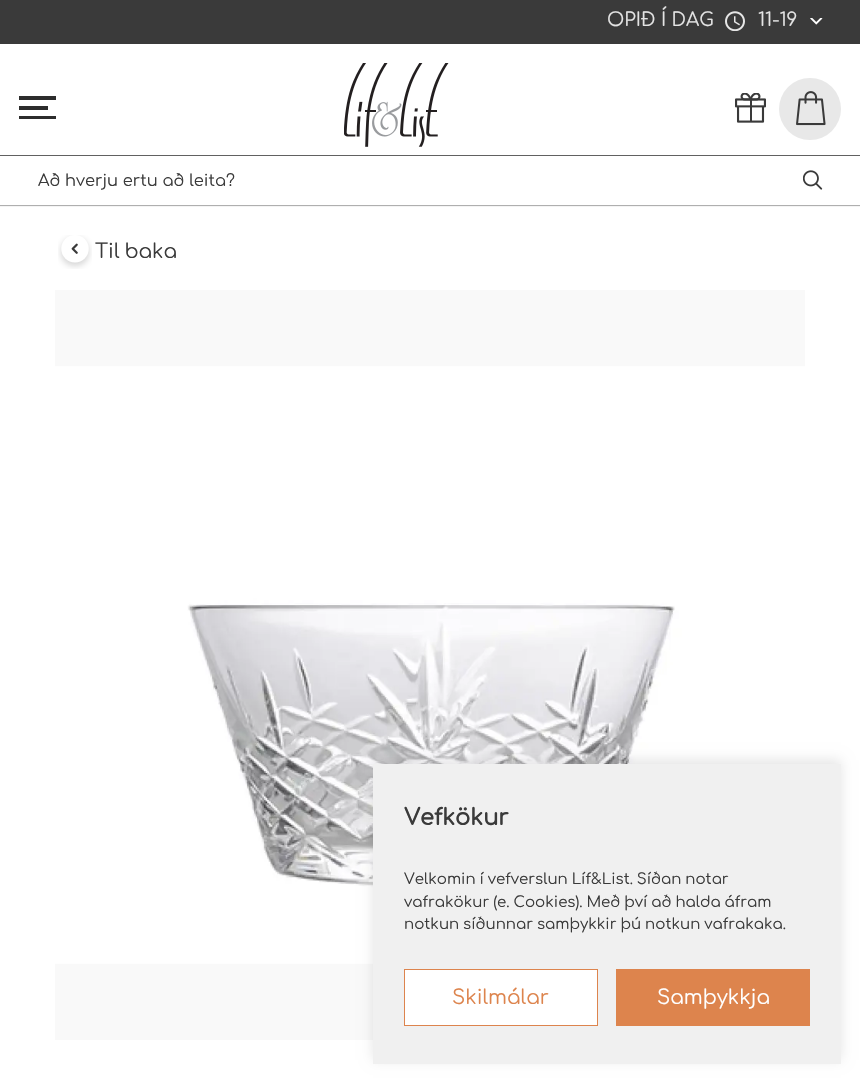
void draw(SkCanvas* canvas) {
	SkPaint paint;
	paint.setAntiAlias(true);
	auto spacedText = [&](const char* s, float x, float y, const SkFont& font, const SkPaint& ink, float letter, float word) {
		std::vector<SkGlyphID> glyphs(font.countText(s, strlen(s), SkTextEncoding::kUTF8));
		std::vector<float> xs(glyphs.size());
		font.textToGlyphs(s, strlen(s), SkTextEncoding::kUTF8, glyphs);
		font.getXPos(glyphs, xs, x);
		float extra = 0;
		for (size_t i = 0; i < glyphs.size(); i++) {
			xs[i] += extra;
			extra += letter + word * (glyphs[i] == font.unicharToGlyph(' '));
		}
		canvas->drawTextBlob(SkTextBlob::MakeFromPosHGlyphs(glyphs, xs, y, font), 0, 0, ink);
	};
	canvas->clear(0xffffffff);
	paint.setColor(0xffeaeaea);
	canvas->drawRect(SkRect::MakeXYWH(0, 205, 860, 1), paint);
	paint.setColor(0xff3a3a3a);
	canvas->drawRect(SkRect::MakeXYWH(0, 0, 860, 44), paint);
	SkFont f1(fontMgr->matchFamilyStyle("Comfortaa", SkFontStyle::Normal()), 18.75);
	f1.setSubpixel(true);
	paint.setColor(0xffe4e4e4);
	canvas->drawString("OPIÐ Í DAG", 607, 26, f1, paint);
	canvas->drawImageRect(SkImages::DeferredFromEncodedData(SkData::MakeFromFileName("img1.png")), SkRect::MakeXYWH(725, 11, 20, 20), SkSamplingOptions());
	canvas->drawString("11-19", 758, 26, f1, paint);
	canvas->drawImageRect(SkImages::DeferredFromEncodedData(SkData::MakeFromFileName("img2.png")), SkRect::MakeXYWH(810, 18, 13, 7), SkSamplingOptions());
	paint.setColor(0xff2d2d2d);
	canvas->drawRect(SkRect::MakeXYWH(19, 96, 37, 4), paint);
	canvas->drawRect(SkRect::MakeXYWH(19, 106, 29, 4), paint);
	canvas->drawRect(SkRect::MakeXYWH(19, 116, 37, 3), paint);
	canvas->drawImageRect(SkImages::DeferredFromEncodedData(SkData::MakeFromFileName("img3.png")), SkRect::MakeXYWH(344, 63, 105, 84), SkSamplingOptions());
	canvas->drawImageRect(SkImages::DeferredFromEncodedData(SkData::MakeFromFileName("img4.png")), SkRect::MakeXYWH(735, 93, 31, 30), SkSamplingOptions());
	paint.setColor(0xffe8e8e8);
	canvas->drawCircle(810, 109, 31, paint);
	canvas->drawImageRect(SkImages::DeferredFromEncodedData(SkData::MakeFromFileName("img5.png")), SkRect::MakeXYWH(796, 91, 30, 35), SkSamplingOptions());
	canvas->save();
	canvas->clipRect(SkRect::MakeXYWH(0, 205, 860, 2));
	paint.setColor(0x40000000);
	paint.setMaskFilter(SkMaskFilter::MakeBlur(kNormal_SkBlurStyle, 0.5));
	canvas->drawRect(SkRect::MakeXYWH(0, 156, 860, 50), paint);
	paint.setMaskFilter(nullptr);
	canvas->restore();
	paint.setColor(0xff616161);
	canvas->drawRect(SkRect::MakeXYWH(0, 155, 860, 1), paint);
	canvas->save();
	canvas->clipRect(SkRect::MakeXYWH(38, 173, 785, 17));
	SkFont f2(fontMgr->matchFamilyStyle("Comfortaa", SkFontStyle::Normal()), 16.25);
	f2.setSubpixel(true);
	paint.setColor(0xff3a3a3a);
	canvas->drawString("Að hverju ertu að leita?", 38, 186, f2, paint);
	canvas->restore();
	canvas->drawImageRect(SkImages::DeferredFromEncodedData(SkData::MakeFromFileName("img6.png")), SkRect::MakeXYWH(803, 170, 20, 20), SkSamplingOptions());
	canvas->drawImageRect(SkImages::DeferredFromEncodedData(SkData::MakeFromFileName("img7.png")), SkRect::MakeXYWH(58, 235, 34, 34), SkSamplingOptions());
	SkFont f3(fontMgr->matchFamilyStyle("Comfortaa", SkFontStyle::Normal()), 20);
	f3.setSubpixel(true);
	spacedText("Til baka", 95, 258, f3, paint, 0, -1);
	paint.setColor(0xfff9f9f9);
	canvas->drawRect(SkRect::MakeXYWH(55, 290, 750, 750), paint);
	canvas->drawImageRect(SkImages::DeferredFromEncodedData(SkData::MakeFromFileName("img8.png")), SkRect::MakeXYWH(55, 366, 750, 598), SkSamplingOptions());
	paint.setColor(0x1a000000);
	paint.setMaskFilter(SkMaskFilter::MakeBlur(kNormal_SkBlurStyle, 6));
	canvas->drawRect(SkRect::MakeXYWH(373, 760, 468, 300), paint);
	paint.setMaskFilter(nullptr);
	paint.setColor(0xfff0f0f0);
	canvas->drawRect(SkRect::MakeXYWH(373, 764, 468, 300), paint);
	SkFont f4(fontMgr->matchFamilyStyle("Comfortaa", SkFontStyle::Bold()), 22.5);
	f4.setSubpixel(true);
	paint.setColor(0xff3a3a3a);
	canvas->drawString("Vefkökur", 404, 825, f4, paint);
	SkFont f5(fontMgr->matchFamilyStyle("Comfortaa", SkFontStyle::Normal()), 15);
	f5.setSubpixel(true);
	spacedText("Velkomin í vefverslun Líf&List. Síðan notar", 404, 884, f5, paint, 0, -0.5);
	spacedText("vafrakökur (e. Cookies). Með því að halda áfram", 404, 907, f5, paint, 0, -0.5);
	spacedText("notkun síðunnar samþykkir þú notkun vafrakaka.", 404, 929, f5, paint, 0, -0.5);
	paint.setColor(0xffffffff);
	canvas->drawRect(SkRect::MakeXYWH(404.5, 969.5, 193, 56), paint);
	paint.setStroke(true);
	paint.setStrokeWidth(1);
	paint.setColor(0xffdd844d);
	canvas->drawRect(SkRect::MakeXYWH(404.5, 969.5, 193, 56), paint);
	paint.setStroke(false);
	canvas->drawString("Skilmálar", 452, 1004, f3, paint);
	canvas->drawRect(SkRect::MakeXYWH(616, 969, 194, 57), paint);
	paint.setColor(0xffffffff);
	canvas->drawString("Samþykkja", 657, 1004, f3, paint);
}
